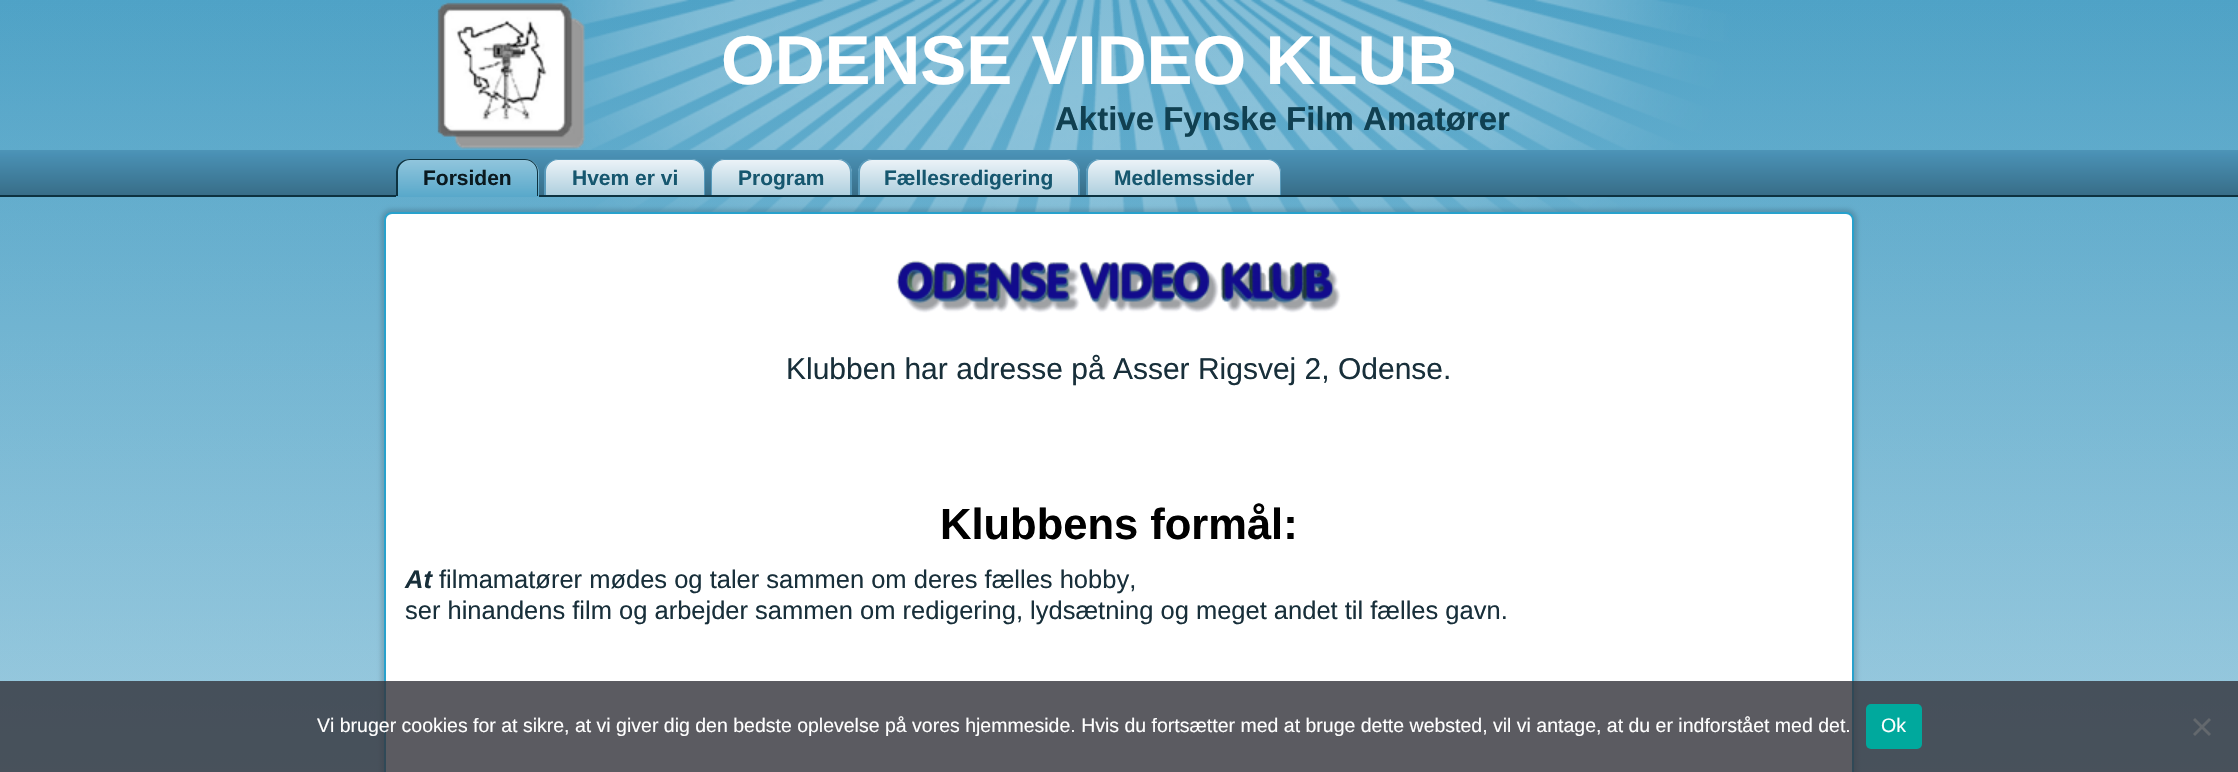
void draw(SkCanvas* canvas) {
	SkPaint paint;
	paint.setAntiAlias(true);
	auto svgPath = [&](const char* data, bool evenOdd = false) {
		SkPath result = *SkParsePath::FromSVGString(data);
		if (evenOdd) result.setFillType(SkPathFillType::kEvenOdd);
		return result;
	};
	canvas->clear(0xffffffff);
	canvas->drawImageRect(SkImages::DeferredFromEncodedData(SkData::MakeFromFileName("img1.png")), SkRect::MakeXYWH(0, 0, 2238, 772), SkSamplingOptions());
	canvas->drawImageRect(SkImages::DeferredFromEncodedData(SkData::MakeFromFileName("img2.png")), SkRect::MakeXYWH(437, 2, 149, 147), SkSamplingOptions());
	SkFont f1(fontMgr->matchFamilyStyle("Liberation Sans", SkFontStyle::Bold()), 69);
	f1.setSubpixel(true);
	paint.setColor(0xffffffff);
	canvas->drawString("ODENSE VIDEO KLUB", 721, 84, f1, paint);
	SkFont f2(fontMgr->matchFamilyStyle("Liberation Sans", SkFontStyle::Bold()), 33);
	f2.setSubpixel(true);
	paint.setColor(0xff104051);
	canvas->drawString("Aktive Fynske Film Amatører", 1055, 130, f2, paint);
	{
		const SkColor colors[] = {0xff4e94b7, 0xff4a91b5, 0xff376c86};
		const float stops[] = {0, 0.07, 1};
		const SkPoint ends[] = {{1119, 150}, {1119, 197}};
		paint.setShader(SkGradientShader::MakeLinear(ends, colors, stops, 3, SkTileMode::kClamp));
		paint.setAlpha(255);
	}
	canvas->drawRect(SkRect::MakeXYWH(0, 150, 2238, 45), paint);
	paint.setShader(nullptr);
	paint.setColor(0xff0d3240);
	canvas->drawRect(SkRect::MakeXYWH(0, 195, 2238, 2), paint);
	{
		const SkColor colors[] = {0xff92c6dd, 0xff58a8ca};
		const float stops[] = {0, 1};
		const SkPoint ends[] = {{467, 159}, {467, 197}};
		paint.setShader(SkGradientShader::MakeLinear(ends, colors, stops, 2, SkTileMode::kClamp));
		paint.setAlpha(255);
	}
	canvas->drawPath(svgPath("M410 159H525C532.5 159 539 165.5 539 173V197H396V173C396 165.5 402.5 159 410 159Z"), paint);
	paint.setShader(nullptr);
	paint.setColor(0xff0d3240);
	canvas->drawPath(svgPath("M410 159H525C532 159 538 165 538 172V196H396V172C396 165 402 159 410 159ZM410 160H525C532 160 537 166 537 172V196H398V172C398 166 403 160 410 160Z", true), paint);
	SkFont f3(fontMgr->matchFamilyStyle("Liberation Sans", SkFontStyle::Bold()), 21);
	f3.setSubpixel(true);
	paint.setColor(0xff0a191f);
	canvas->drawString("Forsiden", 423, 185, f3, paint);
	{
		const SkColor colors[] = {0xffedf4f8, 0xffafcfde};
		const float stops[] = {0, 1};
		const SkPoint ends[] = {{625, 159}, {625, 195}};
		paint.setShader(SkGradientShader::MakeLinear(ends, colors, stops, 2, SkTileMode::kClamp));
		paint.setAlpha(255);
	}
	canvas->drawPath(svgPath("M559 159H691C698.5 159 705 165.5 705 173V195H545V173C545 165.5 551.5 159 559 159Z"), paint);
	paint.setShader(nullptr);
	paint.setColor(0xff589abb);
	canvas->drawPath(svgPath("M558 159H692C699 159 705 165 705 172V195H544V172C544 165 551 159 558 159ZM558 160H692C698 160 704 166 704 172V195H546V172C546 166 551 160 558 160Z", true), paint);
	paint.setColor(0xff16576f);
	canvas->drawString("Hvem er vi", 572, 185, f3, paint);
	{
		const SkColor colors[] = {0xffedf4f8, 0xffafcfde};
		const float stops[] = {0, 1};
		const SkPoint ends[] = {{782, 159}, {782, 195}};
		paint.setShader(SkGradientShader::MakeLinear(ends, colors, stops, 2, SkTileMode::kClamp));
		paint.setAlpha(255);
	}
	canvas->drawPath(svgPath("M725 159H838C845.5 159 852 165.5 852 173V195H711V173C711 165.5 717.5 159 725 159Z"), paint);
	paint.setShader(nullptr);
	paint.setColor(0xff589abb);
	canvas->drawPath(svgPath("M724 159H838C846 159 852 165 852 172V195H711V172C711 165 717 159 724 159ZM724 160H838C845 160 850 166 850 172V195H712V172C712 166 718 160 724 160Z", true), paint);
	paint.setColor(0xff16576f);
	canvas->drawString("Program", 738, 185, f3, paint);
	{
		const SkColor colors[] = {0xffedf4f8, 0xffafcfde};
		const float stops[] = {0, 1};
		const SkPoint ends[] = {{969, 159}, {969, 195}};
		paint.setShader(SkGradientShader::MakeLinear(ends, colors, stops, 2, SkTileMode::kClamp));
		paint.setAlpha(255);
	}
	canvas->drawPath(svgPath("M872 159H1066C1073.5 159 1080 165.5 1080 173V195H858V173C858 165.5 864.5 159 872 159Z"), paint);
	paint.setShader(nullptr);
	paint.setColor(0xff589abb);
	canvas->drawPath(svgPath("M872 159H1066C1074 159 1080 165 1080 172V195H858V172C858 165 864 159 872 159ZM872 160H1066C1073 160 1078 166 1078 172V195H860V172C860 166 865 160 872 160Z", true), paint);
	paint.setColor(0xff16576f);
	canvas->drawString("Fællesredigering", 884, 185, f3, paint);
	{
		const SkColor colors[] = {0xffedf4f8, 0xffafcfde};
		const float stops[] = {0, 1};
		const SkPoint ends[] = {{1184, 159}, {1184, 195}};
		paint.setShader(SkGradientShader::MakeLinear(ends, colors, stops, 2, SkTileMode::kClamp));
		paint.setAlpha(255);
	}
	canvas->drawPath(svgPath("M1100 159H1267C1274.5 159 1281 165.5 1281 173V195H1086V173C1086 165.5 1092.5 159 1100 159Z"), paint);
	paint.setShader(nullptr);
	paint.setColor(0xff589abb);
	canvas->drawPath(svgPath("M1100 159H1268C1275 159 1281 165 1281 172V195H1086V172C1086 165 1092 159 1100 159ZM1100 160H1268C1274 160 1280 166 1280 172V195H1088V172C1088 166 1093 160 1100 160Z", true), paint);
	paint.setColor(0xff16576f);
	canvas->drawString("Medlemssider", 1114, 185, f3, paint);
	paint.setColor(0x26000000);
	paint.setMaskFilter(SkMaskFilter::MakeBlur(kNormal_SkBlurStyle, 2));
	canvas->drawRoundRect(SkRect::MakeXYWH(381, 209, 1476, 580), 11, 11, paint);
	paint.setMaskFilter(nullptr);
	paint.setColor(0xffffffff);
	canvas->drawRoundRect(SkRect::MakeXYWH(385, 213, 1468, 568), 7, 7, paint);
	paint.setStroke(true);
	paint.setStrokeWidth(2);
	paint.setColor(0xff28a1cc);
	canvas->drawRoundRect(SkRect::MakeXYWH(385, 213, 1468, 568), 7, 7, paint);
	canvas->drawImageRect(SkImages::DeferredFromEncodedData(SkData::MakeFromFileName("img3.png")), SkRect::MakeXYWH(896, 260, 445, 53), SkSamplingOptions());
	SkFont f4(fontMgr->matchFamilyStyle("Liberation Sans", SkFontStyle::Normal()), 30);
	f4.setSubpixel(true);
	paint.setStroke(false);
	paint.setColor(0xff182f3a);
	canvas->drawString("Klubben har adresse på Asser Rigsvej 2, Odense.", 786, 379, f4, paint);
	SkFont f5(fontMgr->matchFamilyStyle("Liberation Sans", SkFontStyle::Bold()), 43.5);
	f5.setSubpixel(true);
	paint.setColor(0xff000000);
	canvas->drawString("Klubbens formål:", 940, 539, f5, paint);
	SkFont f6(fontMgr->matchFamilyStyle("Liberation Sans", SkFontStyle::BoldItalic()), 25.5);
	f6.setSubpixel(true);
	paint.setColor(0xff182f3a);
	canvas->drawString("At", 405, 588, f6, paint);
	SkFont f7(fontMgr->matchFamilyStyle("Liberation Sans", SkFontStyle::Normal()), 25.5);
	f7.setSubpixel(true);
	canvas->drawString("filmamatører mødes og taler sammen om deres fælles hobby,", 439, 588, f7, paint);
	canvas->drawString("ser hinandens film og arbejder sammen om redigering, lydsætning og meget andet til fælles gavn.", 405, 619, f7, paint);
	paint.setColor(0xcc32323a);
	canvas->drawRect(SkRect::MakeXYWH(0, 681, 2238, 91), paint);
	SkFont f8(fontMgr->matchFamilyStyle("Liberation Sans", SkFontStyle::Normal()), 19.5);
	f8.setSubpixel(true);
	paint.setColor(0xffffffff);
	canvas->drawString("Vi bruger cookies for at sikre, at vi giver dig den bedste oplevelse på vores hjemmeside. Hvis du fortsætter med at bruge dette websted, vil vi antage, at du er indforstået med det.", 317, 732, f8, paint);
	paint.setColor(0xff00a99d);
	canvas->drawRoundRect(SkRect::MakeXYWH(1866, 704, 56, 45), 5, 5, paint);
	paint.setColor(0xffffffff);
	canvas->drawString("Ok", 1881, 732, f8, paint);
	paint.setColor(0xff63686d);
	canvas->drawPath(svgPath("M2209 718L2211 720L2195 736L2193 734Z"), paint);
	canvas->drawPath(svgPath("M2193 720L2195 718L2211 734L2209 736Z"), paint);
}
